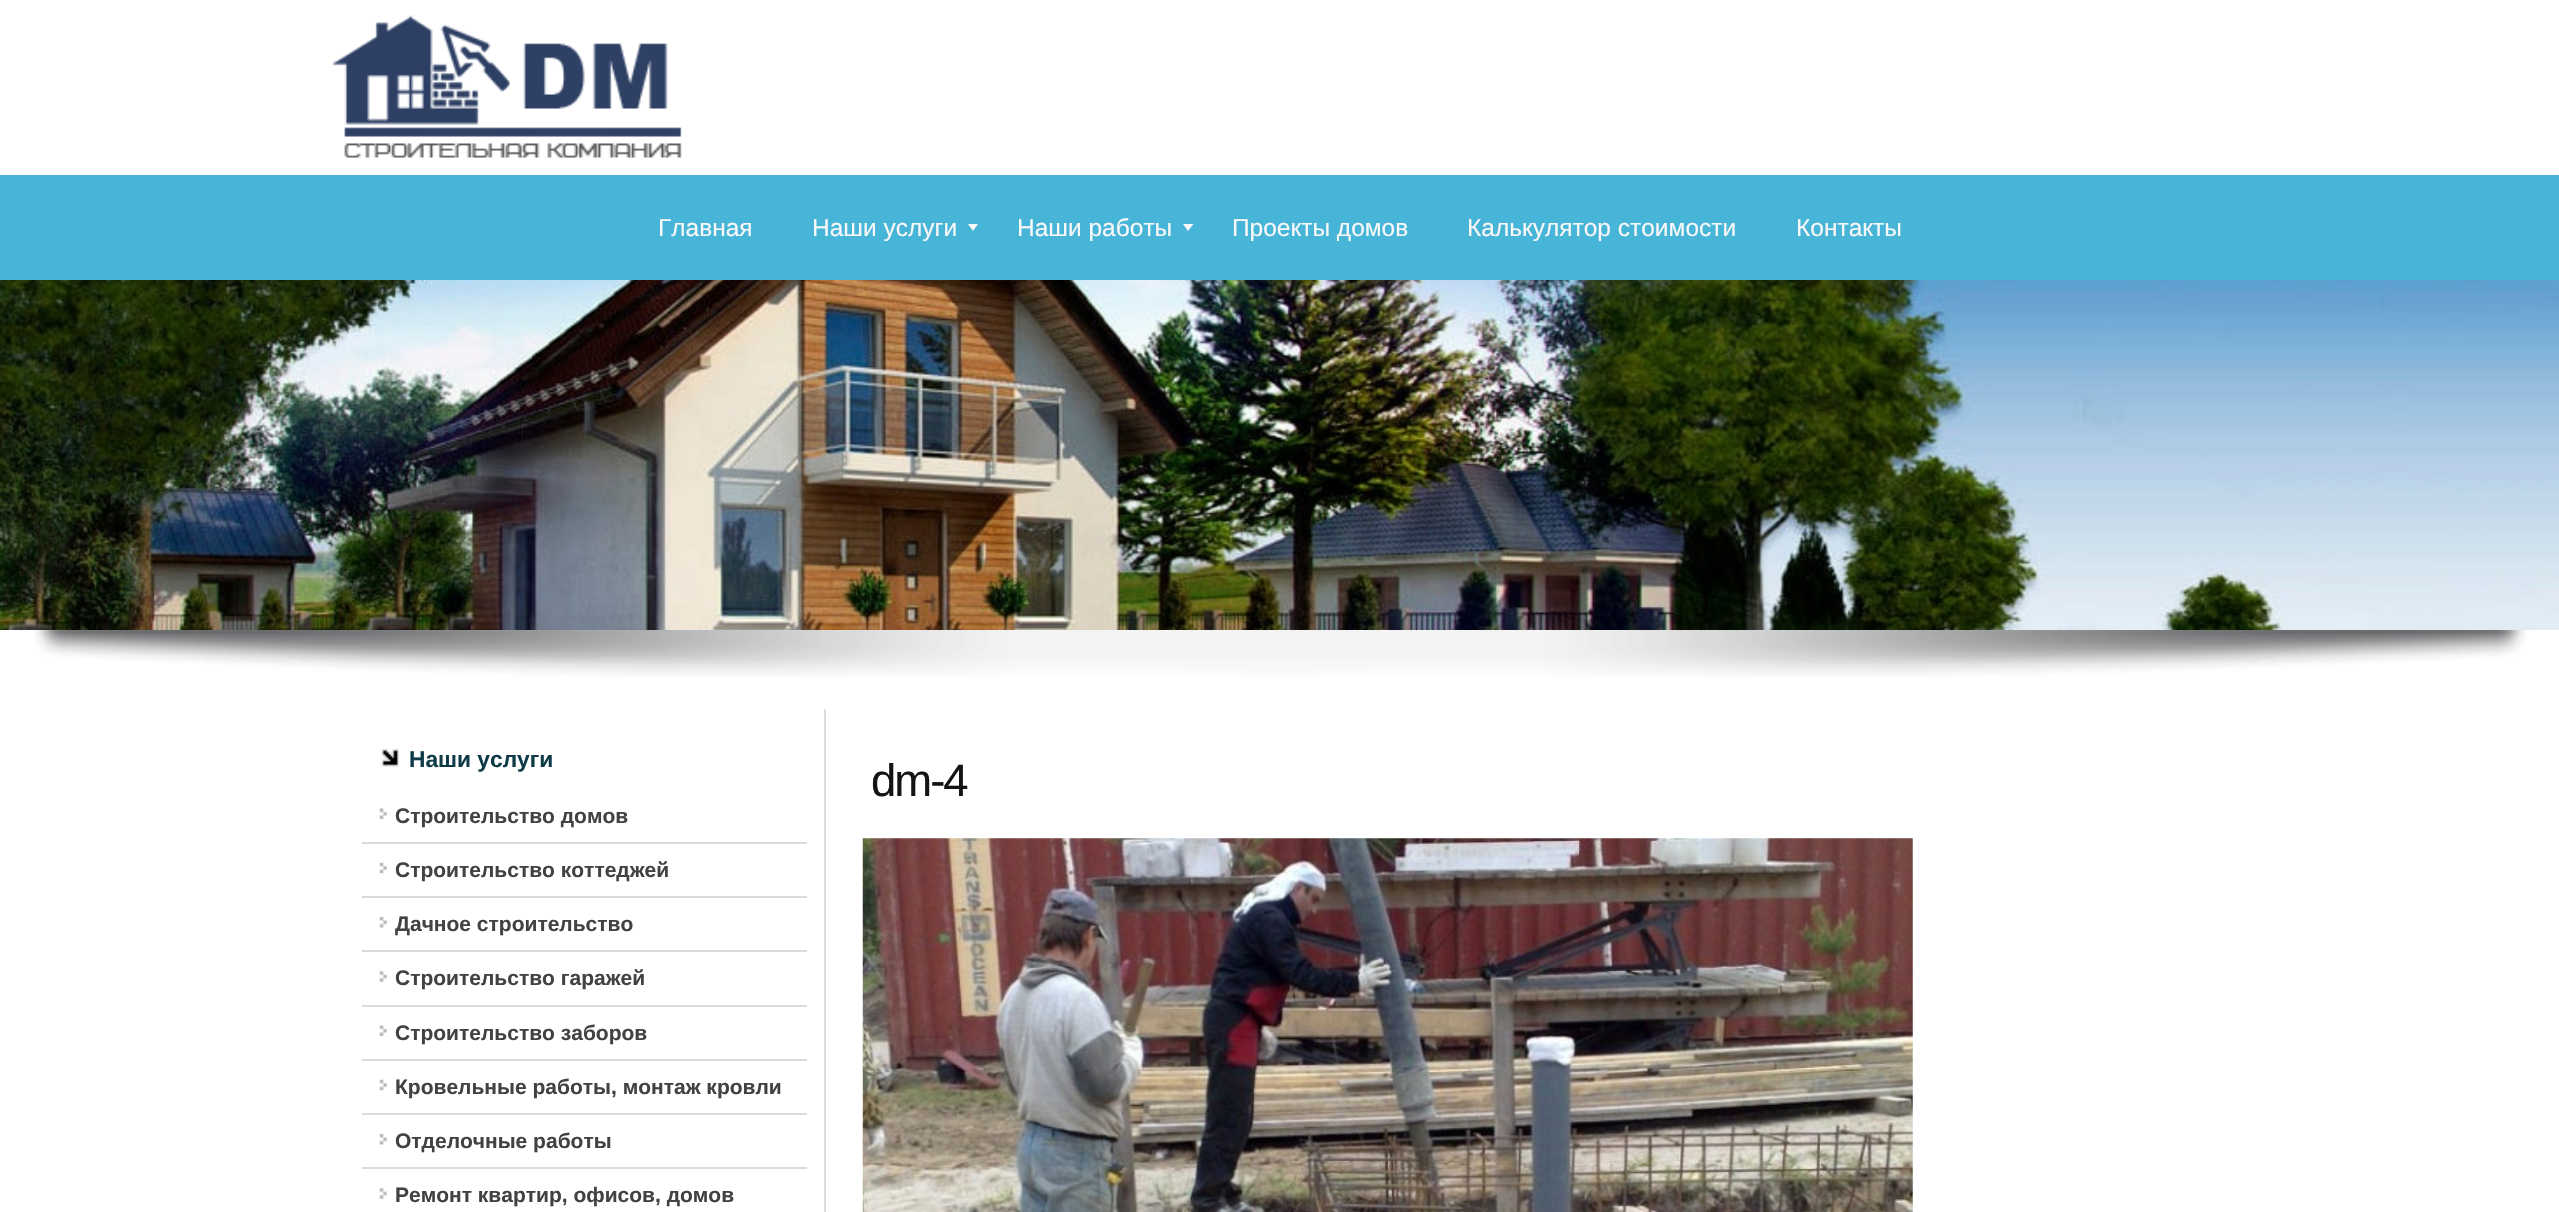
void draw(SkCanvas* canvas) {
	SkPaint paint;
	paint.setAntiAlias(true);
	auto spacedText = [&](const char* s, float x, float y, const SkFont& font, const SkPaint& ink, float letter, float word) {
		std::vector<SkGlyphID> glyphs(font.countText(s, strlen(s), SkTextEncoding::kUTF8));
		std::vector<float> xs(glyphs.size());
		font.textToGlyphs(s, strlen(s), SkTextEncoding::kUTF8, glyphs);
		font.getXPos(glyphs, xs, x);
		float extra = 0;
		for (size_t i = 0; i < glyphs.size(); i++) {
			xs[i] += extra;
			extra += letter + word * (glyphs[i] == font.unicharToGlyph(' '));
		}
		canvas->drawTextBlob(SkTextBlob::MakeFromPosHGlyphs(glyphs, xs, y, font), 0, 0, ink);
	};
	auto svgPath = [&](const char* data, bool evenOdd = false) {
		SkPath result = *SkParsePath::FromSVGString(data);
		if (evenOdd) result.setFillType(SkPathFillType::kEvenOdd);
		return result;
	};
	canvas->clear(0xffffffff);
	canvas->drawImageRect(SkImages::DeferredFromEncodedData(SkData::MakeFromFileName("img1.png")), SkRect::MakeXYWH(332, 15, 350, 143), SkSamplingOptions());
	paint.setColor(0xff47b5d7);
	canvas->drawRect(SkRect::MakeXYWH(0, 175, 2559, 105), paint);
	SkFont f1(fontMgr->matchFamilyStyle("Liberation Sans", SkFontStyle::Normal()), 24.5);
	f1.setSubpixel(true);
	paint.setColor(0xfff8f8f8);
	canvas->drawString("Главная", 658, 236, f1, paint);
	canvas->drawString("Наши услуги", 812, 236, f1, paint);
	canvas->drawPath(svgPath("M968 224H978L973 231Z"), paint);
	canvas->drawString("Наши работы", 1017, 236, f1, paint);
	canvas->drawPath(svgPath("M1183 224H1193.5L1188 231Z"), paint);
	canvas->drawString("Проекты домов", 1232, 236, f1, paint);
	canvas->drawString("Калькулятор стоимости", 1467, 236, f1, paint);
	canvas->drawString("Контакты", 1796, 236, f1, paint);
	canvas->drawImageRect(SkImages::DeferredFromEncodedData(SkData::MakeFromFileName("img2.png")), SkRect::MakeXYWH(0, 280, 2559, 350), SkSamplingOptions());
	canvas->drawImageRect(SkImages::DeferredFromEncodedData(SkData::MakeFromFileName("img3.png")), SkRect::MakeXYWH(35, 630, 2491, 47), SkSamplingOptions());
	paint.setColor(0xffdedede);
	canvas->drawRect(SkRect::MakeXYWH(824, 709, 2, 503), paint);
	canvas->drawImageRect(SkImages::DeferredFromEncodedData(SkData::MakeFromFileName("img4.png")), SkRect::MakeXYWH(381, 749, 18, 18), SkSamplingOptions());
	SkFont f2(fontMgr->matchFamilyStyle("Liberation Sans", SkFontStyle::Bold()), 22.75);
	f2.setSubpixel(true);
	paint.setColor(0xff0f3b48);
	canvas->drawString("Наши услуги", 409, 767, f2, paint);
	canvas->drawImageRect(SkImages::DeferredFromEncodedData(SkData::MakeFromFileName("img5.png")), SkRect::MakeXYWH(379, 808, 8, 11), SkSamplingOptions());
	SkFont f3(fontMgr->matchFamilyStyle("Liberation Sans", SkFontStyle::Bold()), 21);
	f3.setSubpixel(true);
	paint.setColor(0xff424242);
	canvas->drawString("Строительство домов", 395, 823, f3, paint);
	paint.setColor(0xffdbdbdb);
	canvas->drawRect(SkRect::MakeXYWH(362, 842, 445, 2), paint);
	canvas->drawImageRect(SkImages::DeferredFromEncodedData(SkData::MakeFromFileName("img6.png")), SkRect::MakeXYWH(379, 862, 8, 12), SkSamplingOptions());
	paint.setColor(0xff424242);
	canvas->drawString("Строительство коттеджей", 395, 877, f3, paint);
	paint.setColor(0xffdbdbdb);
	canvas->drawRect(SkRect::MakeXYWH(362, 896, 445, 2), paint);
	canvas->drawImageRect(SkImages::DeferredFromEncodedData(SkData::MakeFromFileName("img7.png")), SkRect::MakeXYWH(379, 917, 8, 11), SkSamplingOptions());
	paint.setColor(0xff424242);
	canvas->drawString("Дачное строительство", 395, 931, f3, paint);
	paint.setColor(0xffdbdbdb);
	canvas->drawRect(SkRect::MakeXYWH(362, 950, 445, 2), paint);
	canvas->drawImageRect(SkImages::DeferredFromEncodedData(SkData::MakeFromFileName("img8.png")), SkRect::MakeXYWH(379, 971, 8, 11), SkSamplingOptions());
	paint.setColor(0xff424242);
	canvas->drawString("Строительство гаражей", 395, 985, f3, paint);
	paint.setColor(0xffdbdbdb);
	canvas->drawRect(SkRect::MakeXYWH(362, 1005, 445, 2), paint);
	canvas->drawImageRect(SkImages::DeferredFromEncodedData(SkData::MakeFromFileName("img5.png")), SkRect::MakeXYWH(379, 1025, 8, 11), SkSamplingOptions());
	paint.setColor(0xff424242);
	canvas->drawString("Строительство заборов", 395, 1040, f3, paint);
	paint.setColor(0xffdbdbdb);
	canvas->drawRect(SkRect::MakeXYWH(362, 1059, 445, 2), paint);
	canvas->drawImageRect(SkImages::DeferredFromEncodedData(SkData::MakeFromFileName("img6.png")), SkRect::MakeXYWH(379, 1079, 8, 12), SkSamplingOptions());
	paint.setColor(0xff424242);
	canvas->drawString("Кровельные работы, монтаж кровли", 395, 1094, f3, paint);
	paint.setColor(0xffdbdbdb);
	canvas->drawRect(SkRect::MakeXYWH(362, 1113, 445, 2), paint);
	canvas->drawImageRect(SkImages::DeferredFromEncodedData(SkData::MakeFromFileName("img7.png")), SkRect::MakeXYWH(379, 1134, 8, 11), SkSamplingOptions());
	paint.setColor(0xff424242);
	canvas->drawString("Отделочные работы", 395, 1148, f3, paint);
	paint.setColor(0xffdbdbdb);
	canvas->drawRect(SkRect::MakeXYWH(362, 1167, 445, 2), paint);
	canvas->drawImageRect(SkImages::DeferredFromEncodedData(SkData::MakeFromFileName("img8.png")), SkRect::MakeXYWH(379, 1188, 8, 11), SkSamplingOptions());
	paint.setColor(0xff424242);
	canvas->drawString("Ремонт квартир, офисов, домов", 395, 1202, f3, paint);
	SkFont f4(fontMgr->matchFamilyStyle("Liberation Sans", SkFontStyle::Normal()), 45.5);
	f4.setSubpixel(true);
	paint.setColor(0xff141414);
	spacedText("dm-4", 871, 796, f4, paint, -2, 0);
	canvas->drawImageRect(SkImages::DeferredFromEncodedData(SkData::MakeFromFileName("img9.png")), SkRect::MakeXYWH(862, 838, 1051, 374), SkSamplingOptions());
}
